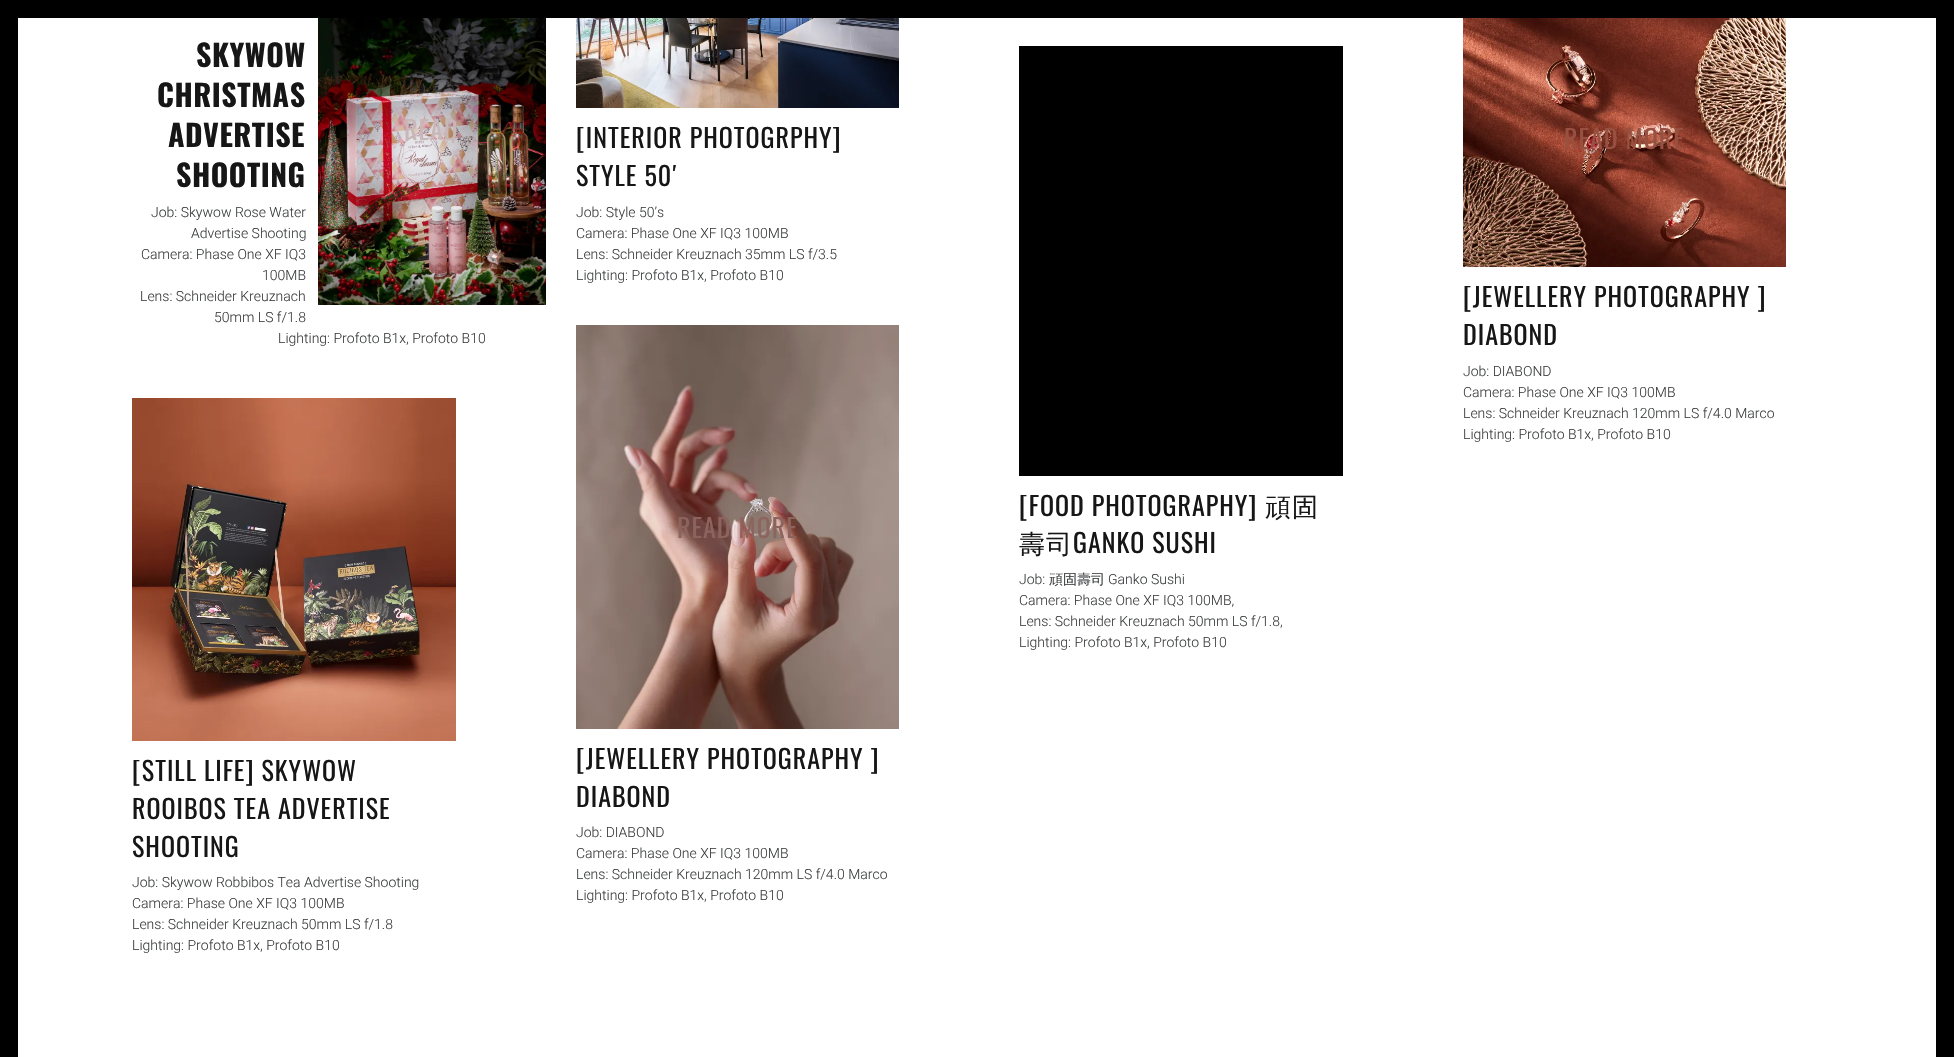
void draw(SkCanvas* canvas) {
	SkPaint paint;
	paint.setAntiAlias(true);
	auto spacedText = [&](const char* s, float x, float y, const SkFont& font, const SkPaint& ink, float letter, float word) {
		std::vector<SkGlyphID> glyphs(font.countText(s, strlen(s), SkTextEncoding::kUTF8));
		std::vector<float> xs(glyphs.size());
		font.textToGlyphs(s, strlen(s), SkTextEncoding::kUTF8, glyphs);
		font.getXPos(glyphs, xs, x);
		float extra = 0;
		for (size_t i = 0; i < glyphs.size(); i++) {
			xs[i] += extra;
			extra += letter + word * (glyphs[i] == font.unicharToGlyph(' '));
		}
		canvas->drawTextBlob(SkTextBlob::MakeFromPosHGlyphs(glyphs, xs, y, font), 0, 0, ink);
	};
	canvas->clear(0xffffffff);
	paint.setColor(0xff000000);
	canvas->drawRect(SkRect::MakeXYWH(1936, 18, 18, 1039), paint);
	canvas->drawRect(SkRect::MakeXYWH(0, 18, 18, 1039), paint);
	canvas->drawRect(SkRect::MakeXYWH(0, 0, 1954, 18), paint);
	SkFont f1(fontMgr->matchFamilyStyle("Oswald", SkFontStyle::Bold()), 30);
	f1.setSubpixel(true);
	paint.setColor(0xff171617);
	spacedText("SKYWOW", 196, 67, f1, paint, 0.5, 0);
	spacedText("CHRISTMAS", 157, 107, f1, paint, 0.5, 0);
	spacedText("ADVERTISE", 168, 147, f1, paint, 0.5, 0);
	spacedText("SHOOTING", 176, 187, f1, paint, 0.5, 0);
	canvas->drawImageRect(SkImages::DeferredFromEncodedData(SkData::MakeFromFileName("img1.png")), SkRect::MakeXYWH(318, 18, 228, 287), SkSamplingOptions());
	SkFont f2(fontMgr->matchFamilyStyle("Oswald", SkFontStyle::Normal()), 26);
	f2.setSubpixel(true);
	paint.setColor(0xffc9b7b8);
	spacedText("READ", 404, 140, f2, paint, 1, 0);
	SkFont f3(fontMgr->matchFamilyStyle("Roboto", SkFontStyle(300, SkFontStyle::kNormal_Width, SkFontStyle::kUpright_Slant)), 14);
	f3.setSubpixel(true);
	paint.setColor(0xff3e3f40);
	canvas->drawString("Job: Skywow Rose Water", 151, 217, f3, paint);
	canvas->drawString("Advertise Shooting", 191, 238, f3, paint);
	canvas->drawString("Camera: Phase One XF IQ3", 141, 259, f3, paint);
	canvas->drawString("100MB", 262, 280, f3, paint);
	canvas->drawString("Lens: Schneider Kreuznach", 140, 301, f3, paint);
	canvas->drawString("50mm LS f/1.8", 214, 322, f3, paint);
	canvas->drawString("Lighting: Profoto B1x, Profoto B10", 278, 343, f3, paint);
	canvas->drawImageRect(SkImages::DeferredFromEncodedData(SkData::MakeFromFileName("img2.png")), SkRect::MakeXYWH(576, 18, 323, 90), SkSamplingOptions());
	paint.setColor(0xff171617);
	spacedText("[INTERIOR PHOTOGRPHY]", 576, 148, f2, paint, 1, 0);
	spacedText("STYLE 50′", 576, 186, f2, paint, 1, 0);
	paint.setColor(0xff3e3f40);
	canvas->drawString("Job: Style 50’s", 576, 217, f3, paint);
	canvas->drawString("Camera: Phase One XF IQ3 100MB", 576, 238, f3, paint);
	canvas->drawString("Lens: Schneider Kreuznach 35mm LS f/3.5", 576, 259, f3, paint);
	canvas->drawString("Lighting: Profoto B1x, Profoto B10", 576, 280, f3, paint);
	canvas->drawImageRect(SkImages::DeferredFromEncodedData(SkData::MakeFromFileName("img3.png")), SkRect::MakeXYWH(1463, 18, 323, 249), SkSamplingOptions());
	paint.setColor(0xff985041);
	spacedText("READ MORE", 1564, 149, f2, paint, 1, 0);
	paint.setColor(0xff171617);
	spacedText("[JEWELLERY PHOTOGRAPHY ]", 1463, 307, f2, paint, 1, 0);
	spacedText("DIABOND", 1463, 345, f2, paint, 1, 0);
	paint.setColor(0xff3e3f40);
	canvas->drawString("Job: DIABOND", 1463, 376, f3, paint);
	canvas->drawString("Camera: Phase One XF IQ3 100MB", 1463, 397, f3, paint);
	canvas->drawString("Lens: Schneider Kreuznach 120mm LS f/4.0 Marco", 1463, 418, f3, paint);
	canvas->drawString("Lighting: Profoto B1x, Profoto B10", 1463, 439, f3, paint);
	canvas->drawImageRect(SkImages::DeferredFromEncodedData(SkData::MakeFromFileName("img4.png")), SkRect::MakeXYWH(132, 398, 324, 343), SkSamplingOptions());
	paint.setColor(0xff171617);
	spacedText("[STILL LIFE] SKYWOW", 132, 781, f2, paint, 1, 0);
	spacedText("ROOIBOS TEA ADVERTISE", 132, 819, f2, paint, 1, 0);
	spacedText("SHOOTING", 132, 857, f2, paint, 1, 0);
	paint.setColor(0xff3e3f40);
	canvas->drawString("Job: Skywow Robbibos Tea Advertise Shooting", 132, 887, f3, paint);
	canvas->drawString("Camera: Phase One XF IQ3 100MB", 132, 908, f3, paint);
	canvas->drawString("Lens: Schneider Kreuznach 50mm LS f/1.8", 132, 929, f3, paint);
	canvas->drawString("Lighting: Profoto B1x, Profoto B10", 132, 950, f3, paint);
	canvas->drawImageRect(SkImages::DeferredFromEncodedData(SkData::MakeFromFileName("img5.png")), SkRect::MakeXYWH(576, 325, 323, 404), SkSamplingOptions());
	paint.setColor(0xff8c645d);
	spacedText("READ MORE", 677, 538, f2, paint, 1, 0);
	paint.setColor(0xff171617);
	spacedText("[JEWELLERY PHOTOGRAPHY ]", 576, 769, f2, paint, 1, 0);
	spacedText("DIABOND", 576, 807, f2, paint, 1, 0);
	paint.setColor(0xff3e3f40);
	canvas->drawString("Job: DIABOND", 576, 837, f3, paint);
	canvas->drawString("Camera: Phase One XF IQ3 100MB", 576, 858, f3, paint);
	canvas->drawString("Lens: Schneider Kreuznach 120mm LS f/4.0 Marco", 576, 879, f3, paint);
	canvas->drawString("Lighting: Profoto B1x, Profoto B10", 576, 900, f3, paint);
	paint.setColor(0xff000000);
	canvas->drawRect(SkRect::MakeXYWH(1019, 46, 324, 430), paint);
	paint.setColor(0xff171617);
	spacedText("[FOOD PHOTOGRAPHY]", 1019, 516, f2, paint, 1, 0);
	SkFont f4(fontMgr->matchFamilyStyle("WenQuanYi Zen Hei", SkFontStyle(500, SkFontStyle::kNormal_Width, SkFontStyle::kUpright_Slant)), 26);
	f4.setSubpixel(true);
	spacedText("頑固", 1265, 516, f4, paint, 1, 0);
	spacedText("壽司", 1019, 553, f4, paint, 1, 0);
	spacedText("GANKO SUSHI", 1073, 553, f2, paint, 1, 0);
	paint.setColor(0xff3e3f40);
	canvas->drawString("Job:", 1019, 584, f3, paint);
	SkFont f5(fontMgr->matchFamilyStyle("WenQuanYi Zen Hei", SkFontStyle(500, SkFontStyle::kNormal_Width, SkFontStyle::kUpright_Slant)), 14);
	f5.setSubpixel(true);
	canvas->drawString("頑固壽司", 1049, 584, f5, paint);
	canvas->drawString("Ganko Sushi", 1108, 584, f3, paint);
	canvas->drawString("Camera: Phase One XF IQ3 100MB,", 1019, 605, f3, paint);
	canvas->drawString("Lens: Schneider Kreuznach 50mm LS f/1.8,", 1019, 626, f3, paint);
	canvas->drawString("Lighting: Profoto B1x, Profoto B10", 1019, 647, f3, paint);
}
